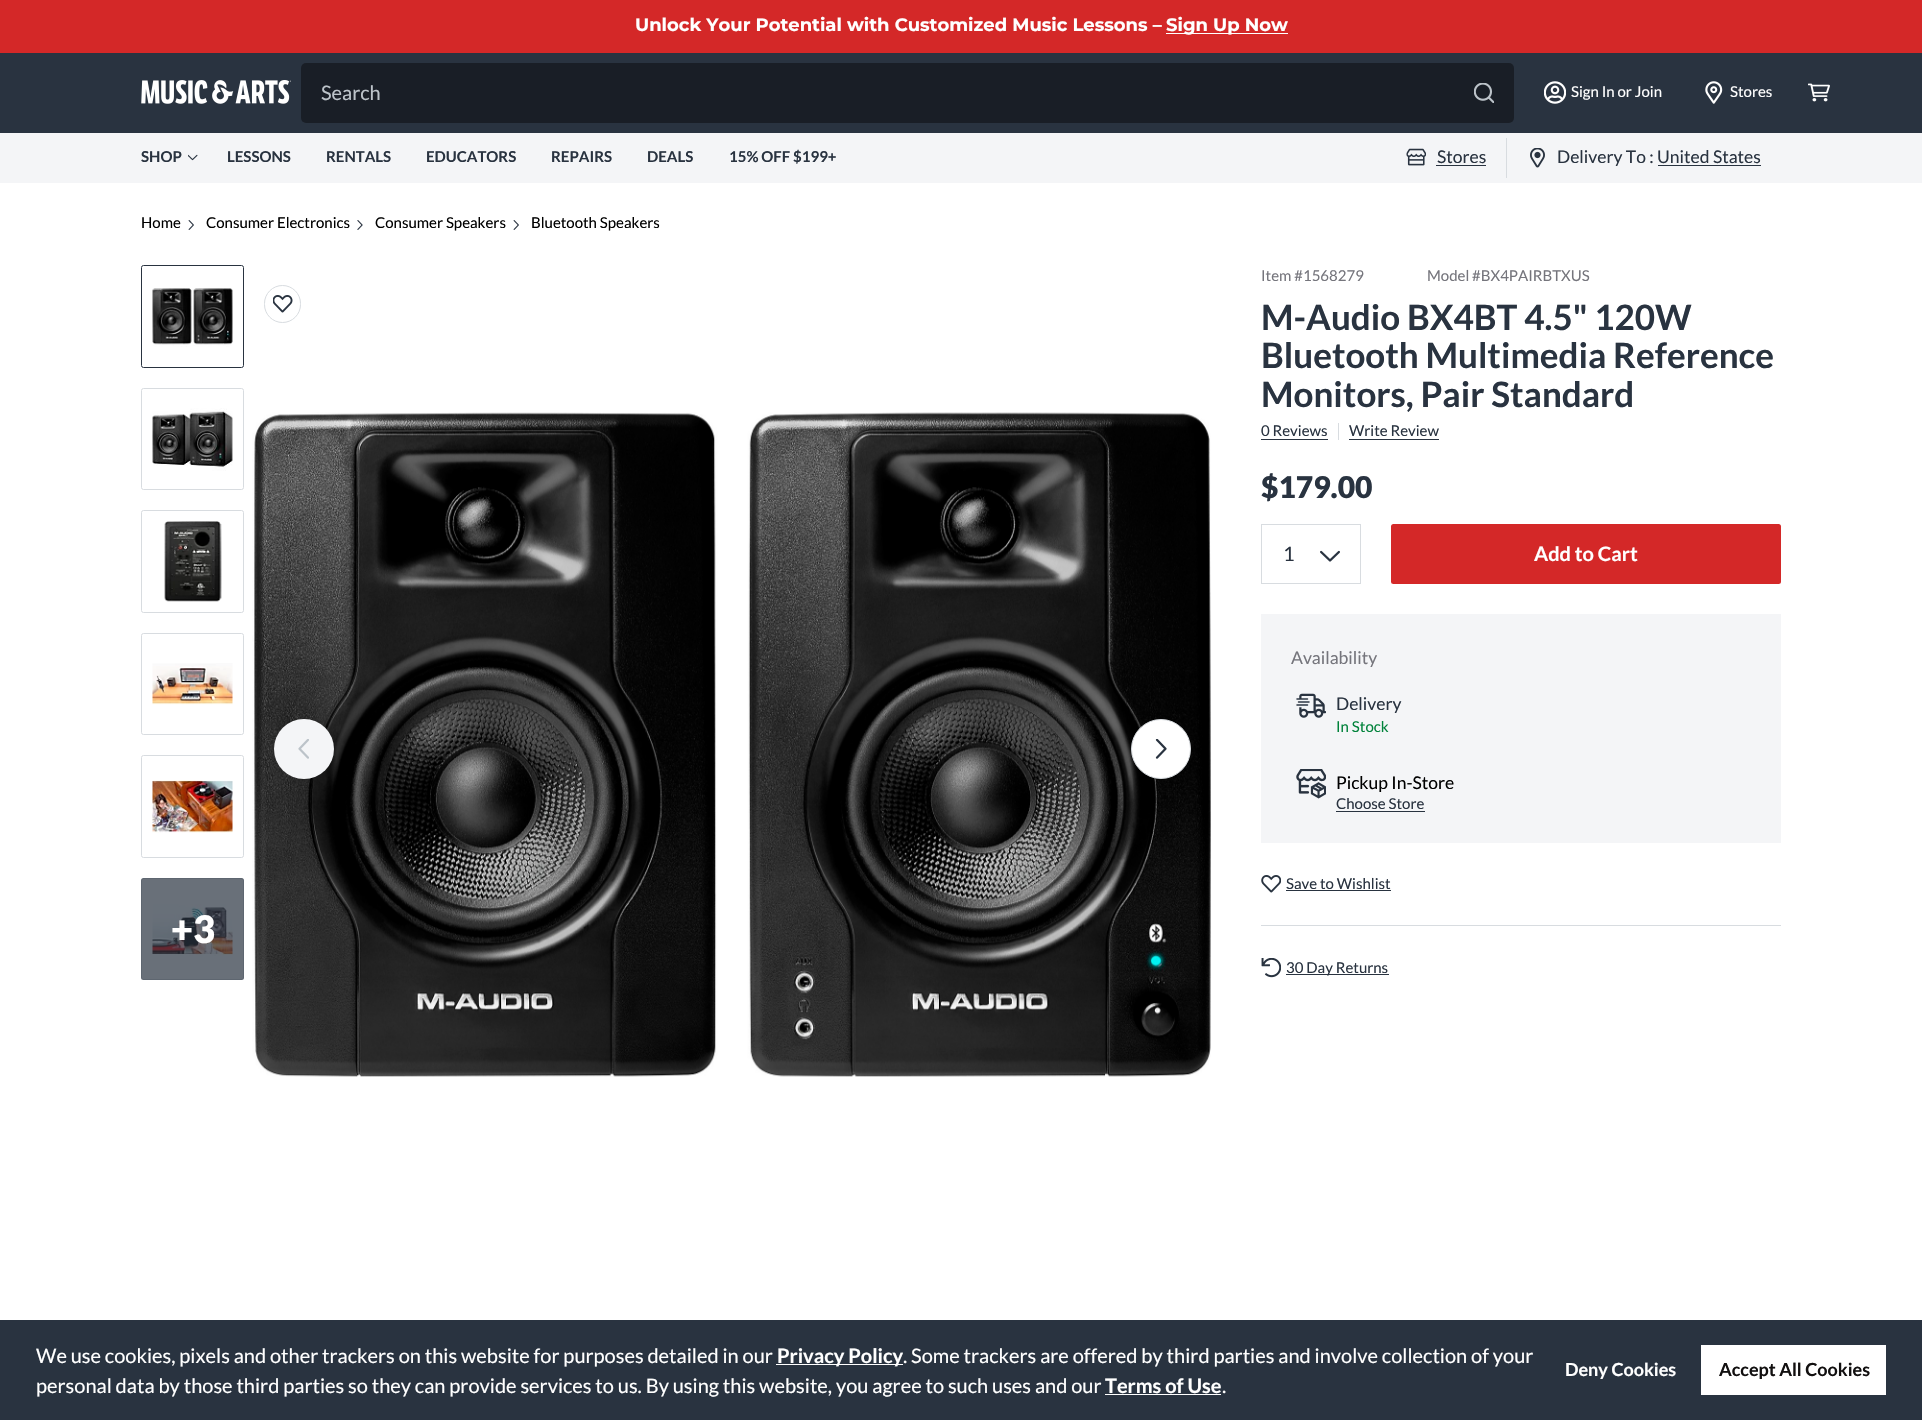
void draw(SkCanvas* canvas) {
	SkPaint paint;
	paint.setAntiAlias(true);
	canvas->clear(0xffffffff);
	paint.setColor(0xffd42828);
	canvas->drawRect(SkRect::MakeXYWH(0, 0, 1922, 53), paint);
	SkFont f1(fontMgr->matchFamilyStyle("Montserrat", SkFontStyle::Bold()), 18);
	f1.setSubpixel(true);
	paint.setColor(0xffffffff);
	canvas->drawString("Unlock Your Potential with Customized Music Lessons –", 635, 31, f1, paint);
	canvas->drawRect(SkRect::MakeXYWH(1166, 33, 122, 1), paint);
	canvas->drawString("Sign Up Now", 1166, 31, f1, paint);
	paint.setColor(0xff293340);
	canvas->drawRect(SkRect::MakeXYWH(0, 53, 1922, 80), paint);
	canvas->drawImageRect(SkImages::DeferredFromEncodedData(SkData::MakeFromFileName("img1.png")), SkRect::MakeXYWH(141, 80, 150, 24), SkSamplingOptions());
	paint.setColor(0xff191e26);
	canvas->drawRoundRect(SkRect::MakeXYWH(301, 63, 1213, 60), 5, 5, paint);
	SkFont f2(fontMgr->matchFamilyStyle("Lato", SkFontStyle::Normal()), 20);
	f2.setSubpixel(true);
	paint.setColor(0xffbcc3c9);
	canvas->drawString("Search", 321, 100, f2, paint);
	canvas->drawImageRect(SkImages::DeferredFromEncodedData(SkData::MakeFromFileName("img2.png")), SkRect::MakeXYWH(1474, 83, 20, 20), SkSamplingOptions());
	canvas->drawImageRect(SkImages::DeferredFromEncodedData(SkData::MakeFromFileName("img3.png")), SkRect::MakeXYWH(1544, 81, 22, 23), SkSamplingOptions());
	SkFont f3(fontMgr->matchFamilyStyle("Lato", SkFontStyle::Normal()), 15);
	f3.setSubpixel(true);
	paint.setColor(0xffffffff);
	canvas->drawString("Sign In or Join", 1571, 97, f3, paint);
	canvas->drawImageRect(SkImages::DeferredFromEncodedData(SkData::MakeFromFileName("img4.png")), SkRect::MakeXYWH(1705, 81, 18, 23), SkSamplingOptions());
	canvas->drawString("Stores", 1730, 97, f3, paint);
	canvas->drawImageRect(SkImages::DeferredFromEncodedData(SkData::MakeFromFileName("img5.png")), SkRect::MakeXYWH(1808, 83, 22, 19), SkSamplingOptions());
	paint.setColor(0xfff4f5f7);
	canvas->drawRect(SkRect::MakeXYWH(0, 133, 1922, 50), paint);
	SkFont f4(fontMgr->matchFamilyStyle("Lato", SkFontStyle::Bold()), 15);
	f4.setSubpixel(true);
	paint.setColor(0xff293340);
	canvas->drawString("SHOP", 141, 162, f4, paint);
	canvas->drawImageRect(SkImages::DeferredFromEncodedData(SkData::MakeFromFileName("img6.png")), SkRect::MakeXYWH(188, 154, 10, 7), SkSamplingOptions());
	canvas->drawString("LESSONS", 227, 162, f4, paint);
	canvas->drawString("RENTALS", 326, 162, f4, paint);
	canvas->drawString("EDUCATORS", 426, 162, f4, paint);
	canvas->drawString("REPAIRS", 551, 162, f4, paint);
	canvas->drawString("DEALS", 647, 162, f4, paint);
	canvas->drawString("15% OFF $199+", 729, 162, f4, paint);
	canvas->drawImageRect(SkImages::DeferredFromEncodedData(SkData::MakeFromFileName("img7.png")), SkRect::MakeXYWH(1406, 148, 20, 18), SkSamplingOptions());
	SkFont f5(fontMgr->matchFamilyStyle("Lato", SkFontStyle::Normal()), 17.5);
	f5.setSubpixel(true);
	canvas->drawString("Stores", 1437, 163, f5, paint);
	canvas->drawRect(SkRect::MakeXYWH(1436, 165, 50, 1), paint);
	paint.setColor(0xffd8dce0);
	canvas->drawRect(SkRect::MakeXYWH(1506, 138, 1, 40), paint);
	canvas->drawImageRect(SkImages::DeferredFromEncodedData(SkData::MakeFromFileName("img8.png")), SkRect::MakeXYWH(1530, 148, 15, 20), SkSamplingOptions());
	paint.setColor(0xff293340);
	canvas->drawString("Delivery To : United States", 1557, 163, f5, paint);
	canvas->drawRect(SkRect::MakeXYWH(1658, 165, 103, 1), paint);
	paint.setColor(0xff000000);
	canvas->drawString("Home", 141, 228, f3, paint);
	canvas->drawImageRect(SkImages::DeferredFromEncodedData(SkData::MakeFromFileName("img9.png")), SkRect::MakeXYWH(188, 220, 6, 10), SkSamplingOptions());
	canvas->drawString("Consumer Electronics", 206, 228, f3, paint);
	canvas->drawImageRect(SkImages::DeferredFromEncodedData(SkData::MakeFromFileName("img10.png")), SkRect::MakeXYWH(357, 220, 6, 10), SkSamplingOptions());
	canvas->drawString("Consumer Speakers", 375, 228, f3, paint);
	canvas->drawImageRect(SkImages::DeferredFromEncodedData(SkData::MakeFromFileName("img9.png")), SkRect::MakeXYWH(513, 220, 6, 10), SkSamplingOptions());
	canvas->drawString("Bluetooth Speakers", 531, 228, f3, paint);
	paint.setStroke(true);
	paint.setStrokeWidth(1);
	paint.setColor(0xff293340);
	canvas->drawRoundRect(SkRect::MakeXYWH(141.5, 265.5, 102, 102), 2, 2, paint);
	canvas->drawImageRect(SkImages::DeferredFromEncodedData(SkData::MakeFromFileName("img11.png")), SkRect::MakeXYWH(152, 288, 81, 59), SkSamplingOptions());
	paint.setColor(0xffd8dce0);
	canvas->drawRoundRect(SkRect::MakeXYWH(141.5, 388.5, 102, 101), 2, 2, paint);
	canvas->drawImageRect(SkImages::DeferredFromEncodedData(SkData::MakeFromFileName("img12.png")), SkRect::MakeXYWH(152, 408, 81, 63), SkSamplingOptions());
	canvas->drawRoundRect(SkRect::MakeXYWH(141.5, 510.5, 102, 102), 2, 2, paint);
	canvas->drawImageRect(SkImages::DeferredFromEncodedData(SkData::MakeFromFileName("img13.png")), SkRect::MakeXYWH(164, 521, 58, 81), SkSamplingOptions());
	canvas->drawRoundRect(SkRect::MakeXYWH(141.5, 633.5, 102, 101), 2, 2, paint);
	canvas->drawImageRect(SkImages::DeferredFromEncodedData(SkData::MakeFromFileName("img14.png")), SkRect::MakeXYWH(152, 663, 81, 42), SkSamplingOptions());
	canvas->drawRoundRect(SkRect::MakeXYWH(141.5, 755.5, 102, 102), 2, 2, paint);
	canvas->drawImageRect(SkImages::DeferredFromEncodedData(SkData::MakeFromFileName("img15.png")), SkRect::MakeXYWH(152, 780, 81, 53), SkSamplingOptions());
	canvas->drawRoundRect(SkRect::MakeXYWH(141.5, 878.5, 102, 101), 2, 2, paint);
	canvas->drawImageRect(SkImages::DeferredFromEncodedData(SkData::MakeFromFileName("img16.png")), SkRect::MakeXYWH(152, 904, 81, 52), SkSamplingOptions());
	paint.setStroke(false);
	paint.setColor(0xb3293340);
	canvas->drawRoundRect(SkRect::MakeXYWH(141, 878, 103, 102), 2.5, 2.5, paint);
	SkFont f6(fontMgr->matchFamilyStyle("Lato", SkFontStyle(900, SkFontStyle::kNormal_Width, SkFontStyle::kUpright_Slant)), 38);
	f6.setSubpixel(true);
	paint.setColor(0xffffffff);
	canvas->drawString("+3", 171, 943, f6, paint);
	paint.setStroke(true);
	paint.setColor(0xffd8dce0);
	canvas->drawRoundRect(SkRect::MakeXYWH(264.5, 285.5, 36, 37), 18, 18, paint);
	canvas->drawImageRect(SkImages::DeferredFromEncodedData(SkData::MakeFromFileName("img17.png")), SkRect::MakeXYWH(273, 295, 20, 18), SkSamplingOptions());
	canvas->drawImageRect(SkImages::DeferredFromEncodedData(SkData::MakeFromFileName("img18.png")), SkRect::MakeXYWH(252, 412, 959, 665), SkSamplingOptions());
	paint.setStroke(false);
	paint.setColor(0xfff4f5f7);
	canvas->drawCircle(304, 749, 30, paint);
	canvas->drawImageRect(SkImages::DeferredFromEncodedData(SkData::MakeFromFileName("img19.png")), SkRect::MakeXYWH(298, 739, 11, 20), SkSamplingOptions());
	paint.setColor(0xffffffff);
	canvas->drawCircle(1161, 749, 29.5, paint);
	paint.setStroke(true);
	paint.setColor(0xffd8dce0);
	canvas->drawCircle(1161, 749, 29.5, paint);
	canvas->drawImageRect(SkImages::DeferredFromEncodedData(SkData::MakeFromFileName("img20.png")), SkRect::MakeXYWH(1155, 739, 12, 20), SkSamplingOptions());
	paint.setStroke(false);
	paint.setColor(0xff75757c);
	canvas->drawString("Item #1568279", 1261, 281, f3, paint);
	canvas->drawString("Model #BX4PAIRBTXUS", 1427, 281, f3, paint);
	SkFont f7(fontMgr->matchFamilyStyle("Lato", SkFontStyle::Bold()), 35);
	f7.setSubpixel(true);
	paint.setColor(0xff293340);
	canvas->drawString("M-Audio BX4BT 4.5\" 120W", 1261, 330, f7, paint);
	canvas->drawString("Bluetooth Multimedia Reference", 1261, 368, f7, paint);
	canvas->drawString("Monitors, Pair Standard", 1261, 407, f7, paint);
	canvas->drawString("0 Reviews", 1261, 436, f3, paint);
	canvas->drawRect(SkRect::MakeXYWH(1261, 439, 67, 1), paint);
	paint.setColor(0xffd8dce0);
	canvas->drawRect(SkRect::MakeXYWH(1338, 423, 1, 17), paint);
	paint.setColor(0xff293340);
	canvas->drawString("Write Review", 1349, 436, f3, paint);
	canvas->drawRect(SkRect::MakeXYWH(1349, 439, 90, 1), paint);
	SkFont f8(fontMgr->matchFamilyStyle("Lato", SkFontStyle(900, SkFontStyle::kNormal_Width, SkFontStyle::kUpright_Slant)), 30);
	f8.setSubpixel(true);
	canvas->drawString("$179.00", 1261, 498, f8, paint);
	paint.setStroke(true);
	paint.setColor(0xffd8dce0);
	canvas->drawRect(SkRect::MakeXYWH(1261.5, 524.5, 99, 59), paint);
	paint.setStroke(false);
	paint.setColor(0xff293340);
	canvas->drawString("1", 1283, 561, f2, paint);
	canvas->drawImageRect(SkImages::DeferredFromEncodedData(SkData::MakeFromFileName("img21.png")), SkRect::MakeXYWH(1320, 550, 20, 12), SkSamplingOptions());
	paint.setColor(0xffd42828);
	canvas->drawRoundRect(SkRect::MakeXYWH(1391, 524, 390, 60), 2.5, 2.5, paint);
	SkFont f9(fontMgr->matchFamilyStyle("Lato", SkFontStyle::Bold()), 20);
	f9.setSubpixel(true);
	paint.setColor(0xffffffff);
	canvas->drawString("Add to Cart", 1534, 561, f9, paint);
	paint.setColor(0xfff4f5f7);
	canvas->drawRect(SkRect::MakeXYWH(1261, 614, 520, 229), paint);
	paint.setColor(0xff75757c);
	canvas->drawString("Availability", 1291, 664, f5, paint);
	canvas->drawImageRect(SkImages::DeferredFromEncodedData(SkData::MakeFromFileName("img22.png")), SkRect::MakeXYWH(1296, 693, 30, 25), SkSamplingOptions());
	paint.setColor(0xff293340);
	canvas->drawString("Delivery", 1336, 710, f5, paint);
	paint.setColor(0xff00823a);
	canvas->drawString("In Stock", 1336, 732, f3, paint);
	canvas->drawImageRect(SkImages::DeferredFromEncodedData(SkData::MakeFromFileName("img23.png")), SkRect::MakeXYWH(1296, 769, 30, 30), SkSamplingOptions());
	paint.setColor(0xff000000);
	canvas->drawString("Pickup In-Store", 1336, 789, f5, paint);
	paint.setColor(0xff293340);
	canvas->drawString("Choose Store", 1336, 809, f3, paint);
	canvas->drawRect(SkRect::MakeXYWH(1336, 811, 89, 1), paint);
	canvas->drawImageRect(SkImages::DeferredFromEncodedData(SkData::MakeFromFileName("img24.png")), SkRect::MakeXYWH(1261, 875, 20, 18), SkSamplingOptions());
	canvas->drawString("Save to Wishlist", 1286, 889, f3, paint);
	canvas->drawRect(SkRect::MakeXYWH(1286, 890, 105, 1), paint);
	paint.setColor(0xffd8dce0);
	canvas->drawRect(SkRect::MakeXYWH(1261, 925, 520, 1), paint);
	canvas->drawImageRect(SkImages::DeferredFromEncodedData(SkData::MakeFromFileName("img25.png")), SkRect::MakeXYWH(1261, 958, 20, 20), SkSamplingOptions());
	paint.setColor(0xff293340);
	canvas->drawRect(SkRect::MakeXYWH(1286, 974, 103, 1), paint);
	canvas->drawString("30 Day Returns", 1286, 973, f3, paint);
	canvas->drawRect(SkRect::MakeXYWH(0, 1320, 1922, 100), paint);
	paint.setColor(0xffffffff);
	canvas->drawString("We use cookies, pixels and other trackers on this website for purposes detailed in our", 36, 1363, f2, paint);
	canvas->drawRect(SkRect::MakeXYWH(776, 1364, 127, 1), paint);
	canvas->drawString("Privacy Policy", 777, 1363, f9, paint);
	canvas->drawString(". Some trackers are offered by third parties and involve collection of your", 903, 1363, f2, paint);
	canvas->drawString("personal data by those third parties so they can provide services to us. By using this website, you agree to such uses and our", 36, 1393, f2, paint);
	canvas->drawString("Terms of Use", 1105, 1393, f9, paint);
	canvas->drawRect(SkRect::MakeXYWH(1105, 1394, 116, 1), paint);
	canvas->drawString(".", 1222, 1393, f2, paint);
	SkFont f10(fontMgr->matchFamilyStyle("Lato", SkFontStyle::Bold()), 18);
	f10.setSubpixel(true);
	canvas->drawString("Deny Cookies", 1565, 1376, f10, paint);
	canvas->drawRect(SkRect::MakeXYWH(1701, 1345, 185, 50), paint);
	paint.setColor(0xff121010);
	canvas->drawString("Accept All Cookies", 1719, 1376, f10, paint);
}
